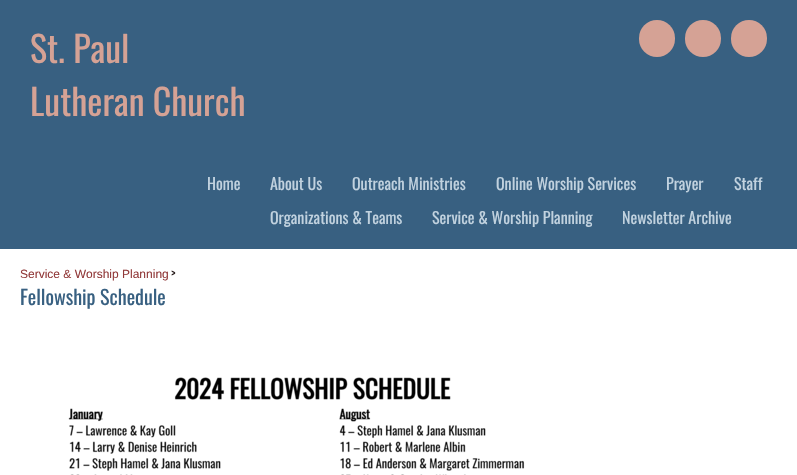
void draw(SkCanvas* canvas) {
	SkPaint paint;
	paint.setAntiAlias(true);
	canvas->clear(0xff386081);
	SkFont f1(fontMgr->matchFamilyStyle("Oswald", SkFontStyle::Normal()), 36);
	f1.setSubpixel(true);
	paint.setColor(0xffd5a295);
	canvas->drawString("St. Paul", 30, 63, f1, paint);
	canvas->drawString("Lutheran Church", 30, 116, f1, paint);
	canvas->drawRoundRect(SkRect::MakeXYWH(639, 20, 36, 37), 18, 18, paint);
	canvas->drawRoundRect(SkRect::MakeXYWH(685, 20, 36, 37), 18, 18, paint);
	canvas->drawRoundRect(SkRect::MakeXYWH(731, 20, 36, 37), 18, 18, paint);
	SkFont f2(fontMgr->matchFamilyStyle("Oswald", SkFontStyle::Normal()), 16);
	f2.setSubpixel(true);
	paint.setColor(0xffc1d2df);
	canvas->drawString("Home", 207, 190, f2, paint);
	canvas->drawString("About Us", 270, 190, f2, paint);
	canvas->drawString("Outreach Ministries", 352, 190, f2, paint);
	canvas->drawString("Online Worship Services", 496, 190, f2, paint);
	canvas->drawString("Prayer", 666, 190, f2, paint);
	canvas->drawString("Staff", 734, 190, f2, paint);
	canvas->drawString("Organizations & Teams", 270, 224, f2, paint);
	canvas->drawString("Service & Worship Planning", 432, 224, f2, paint);
	canvas->drawString("Newsletter Archive", 622, 224, f2, paint);
	paint.setColor(0xffffffff);
	canvas->drawRect(SkRect::MakeXYWH(0, 249, 797, 226), paint);
	SkFont f3(fontMgr->matchFamilyStyle("Liberation Sans", SkFontStyle::Normal()), 12);
	f3.setSubpixel(true);
	paint.setColor(0xff923a3a);
	canvas->drawString("Service & Worship Planning", 20, 278, f3, paint);
	SkFont f4(fontMgr->matchFamilyStyle("Oswald", SkFontStyle::Normal()), 12);
	f4.setSubpixel(true);
	paint.setColor(0xff281d1d);
	canvas->drawString(">", 171, 278, f4, paint);
	SkFont f5(fontMgr->matchFamilyStyle("Oswald", SkFontStyle::Normal()), 20);
	f5.setSubpixel(true);
	paint.setColor(0xff386081);
	canvas->drawString("Fellowship Schedule", 20, 305, f5, paint);
	canvas->drawImageRect(SkImages::DeferredFromEncodedData(SkData::MakeFromFileName("img1.png")), SkRect::MakeXYWH(68, 377, 457, 98), SkSamplingOptions());
}
